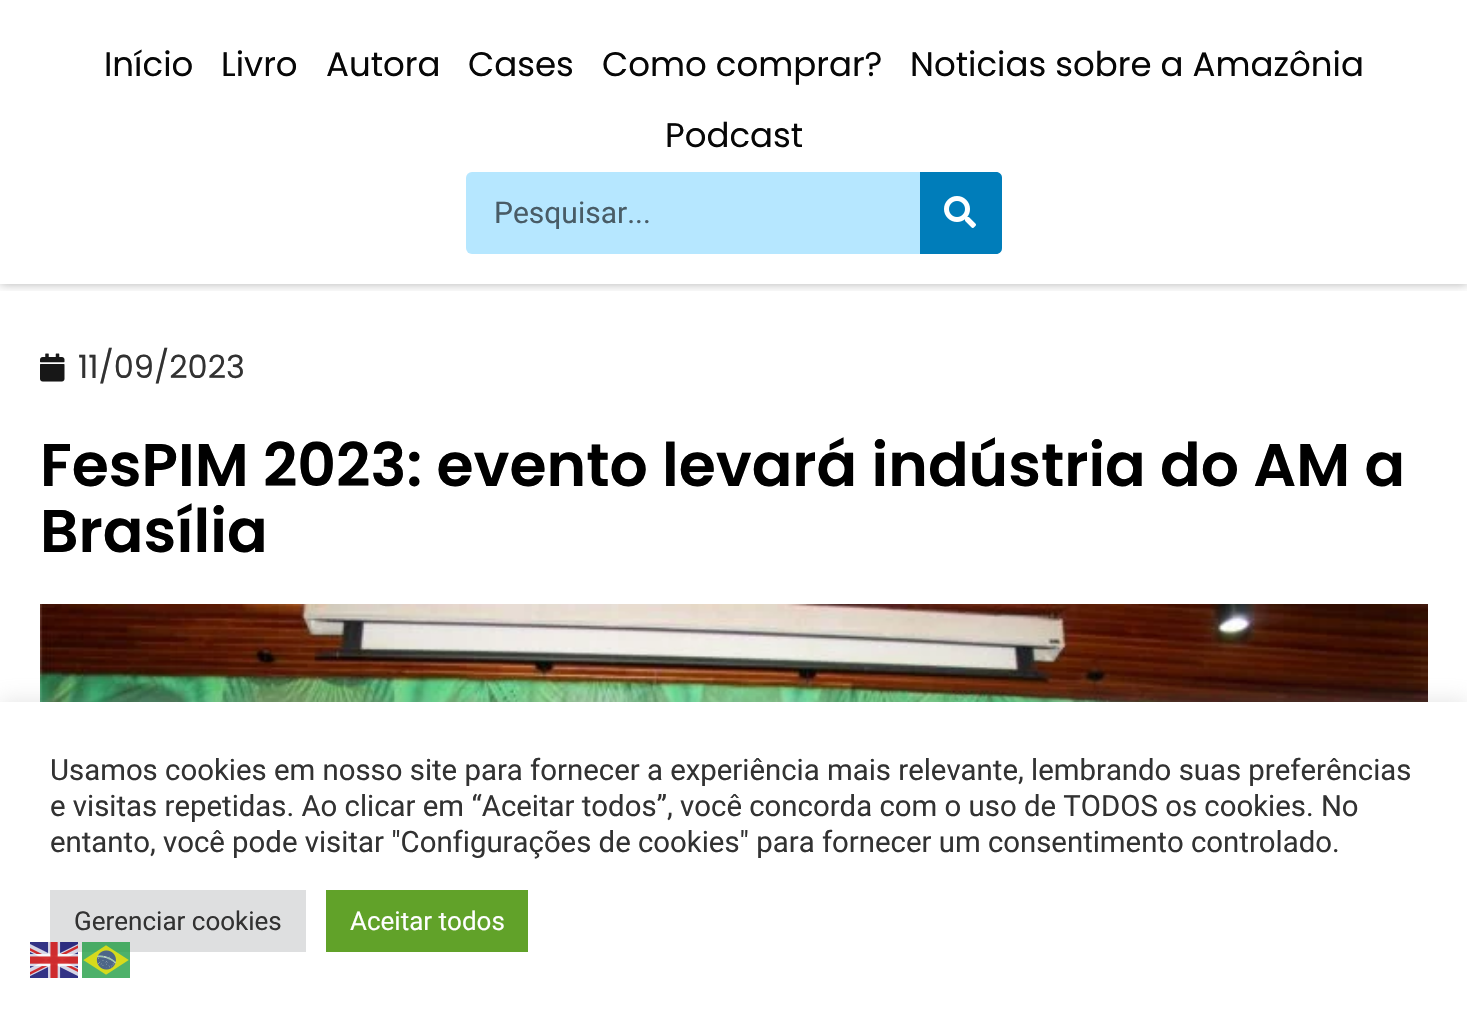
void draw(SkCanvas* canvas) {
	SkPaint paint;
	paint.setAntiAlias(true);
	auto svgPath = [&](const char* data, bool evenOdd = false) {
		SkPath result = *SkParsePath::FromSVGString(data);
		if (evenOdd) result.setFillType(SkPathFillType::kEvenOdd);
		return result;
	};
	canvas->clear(0xffffffff);
	canvas->save();
	canvas->clipRect(SkRect::MakeXYWH(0, 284, 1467, 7));
	paint.setColor(0x4d000000);
	paint.setMaskFilter(SkMaskFilter::MakeBlur(kNormal_SkBlurStyle, 5));
	canvas->drawRect(SkRect::MakeXYWH(0, 0, 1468, 284), paint);
	paint.setMaskFilter(nullptr);
	canvas->restore();
	SkFont f1(fontMgr->matchFamilyStyle("Poppins", SkFontStyle::Normal()), 34);
	f1.setSubpixel(true);
	paint.setColor(0xff070707);
	canvas->drawString("Início", 104, 76, f1, paint);
	canvas->drawString("Livro", 221, 76, f1, paint);
	canvas->drawString("Autora", 326, 76, f1, paint);
	canvas->drawString("Cases", 468, 76, f1, paint);
	canvas->drawString("Como comprar?", 602, 76, f1, paint);
	canvas->drawString("Noticias sobre a Amazônia", 910, 76, f1, paint);
	canvas->drawString("Podcast", 665, 147, f1, paint);
	paint.setColor(0xffb6e7ff);
	canvas->drawRoundRect(SkRect::MakeXYWH(466, 172, 536, 82), 6, 6, paint);
	SkFont f2(fontMgr->matchFamilyStyle("Roboto", SkFontStyle::Normal()), 30);
	f2.setSubpixel(true);
	paint.setColor(0xff495c66);
	canvas->drawString("Pesquisar...", 494, 223, f2, paint);
	paint.setColor(0xff007dba);
	canvas->drawPath(svgPath("M920 172H996C999.5 172 1002 174.5 1002 178V248C1002 251.5 999.5 254 996 254H920Z"), paint);
	canvas->drawImageRect(SkImages::DeferredFromEncodedData(SkData::MakeFromFileName("img1.png")), SkRect::MakeXYWH(944, 196, 32, 32), SkSamplingOptions());
	canvas->drawImageRect(SkImages::DeferredFromEncodedData(SkData::MakeFromFileName("img2.png")), SkRect::MakeXYWH(40, 353, 25, 29), SkSamplingOptions());
	SkFont f3(fontMgr->matchFamilyStyle("Poppins", SkFontStyle::Normal()), 32);
	f3.setSubpixel(true);
	paint.setColor(0xff323232);
	canvas->drawString("11/09/2023", 78, 378, f3, paint);
	SkFont f4(fontMgr->matchFamilyStyle("Poppins", SkFontStyle(600, SkFontStyle::kNormal_Width, SkFontStyle::kUpright_Slant)), 60);
	f4.setSubpixel(true);
	paint.setColor(0xff000000);
	canvas->drawString("FesPIM 2023: evento levará indústria do AM a", 40, 486, f4, paint);
	canvas->drawString("Brasília", 40, 552, f4, paint);
	canvas->drawImageRect(SkImages::DeferredFromEncodedData(SkData::MakeFromFileName("img3.png")), SkRect::MakeXYWH(40, 604, 1388, 98), SkSamplingOptions());
	paint.setColor(0x4dacabab);
	paint.setMaskFilter(SkMaskFilter::MakeBlur(kNormal_SkBlurStyle, 10));
	canvas->drawRect(SkRect::MakeXYWH(0, 700, 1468, 310), paint);
	paint.setMaskFilter(nullptr);
	paint.setColor(0xffffffff);
	canvas->drawRect(SkRect::MakeXYWH(0, 702, 1467, 310), paint);
	SkFont f5(fontMgr->matchFamilyStyle("Roboto", SkFontStyle::Normal()), 29.35);
	f5.setSubpixel(true);
	paint.setColor(0xff323232);
	canvas->drawString("Usamos cookies em nosso site para fornecer a experiência mais relevante, lembrando suas preferências", 50, 780, f5, paint);
	canvas->drawString("e visitas repetidas. Ao clicar em “Aceitar todos”, você concorda com o uso de TODOS os cookies. No", 50, 816, f5, paint);
	canvas->drawString("entanto, você pode visitar \"Configurações de cookies\" para fornecer um consentimento controlado.", 50, 852, f5, paint);
	paint.setColor(0xffdedfe0);
	canvas->drawRect(SkRect::MakeXYWH(50, 890, 256, 62), paint);
	SkFont f6(fontMgr->matchFamilyStyle("Roboto", SkFontStyle::Normal()), 26);
	f6.setSubpixel(true);
	paint.setColor(0xff323232);
	canvas->drawString("Gerenciar cookies", 74, 930, f6, paint);
	paint.setColor(0xff61a229);
	canvas->drawRect(SkRect::MakeXYWH(326, 890, 202, 62), paint);
	paint.setColor(0xffffffff);
	canvas->drawString("Aceitar todos", 350, 930, f6, paint);
	canvas->drawImageRect(SkImages::DeferredFromEncodedData(SkData::MakeFromFileName("img4.png")), SkRect::MakeXYWH(30, 942, 48, 36), SkSamplingOptions());
	canvas->drawImageRect(SkImages::DeferredFromEncodedData(SkData::MakeFromFileName("img5.png")), SkRect::MakeXYWH(82, 942, 48, 36), SkSamplingOptions());
}
